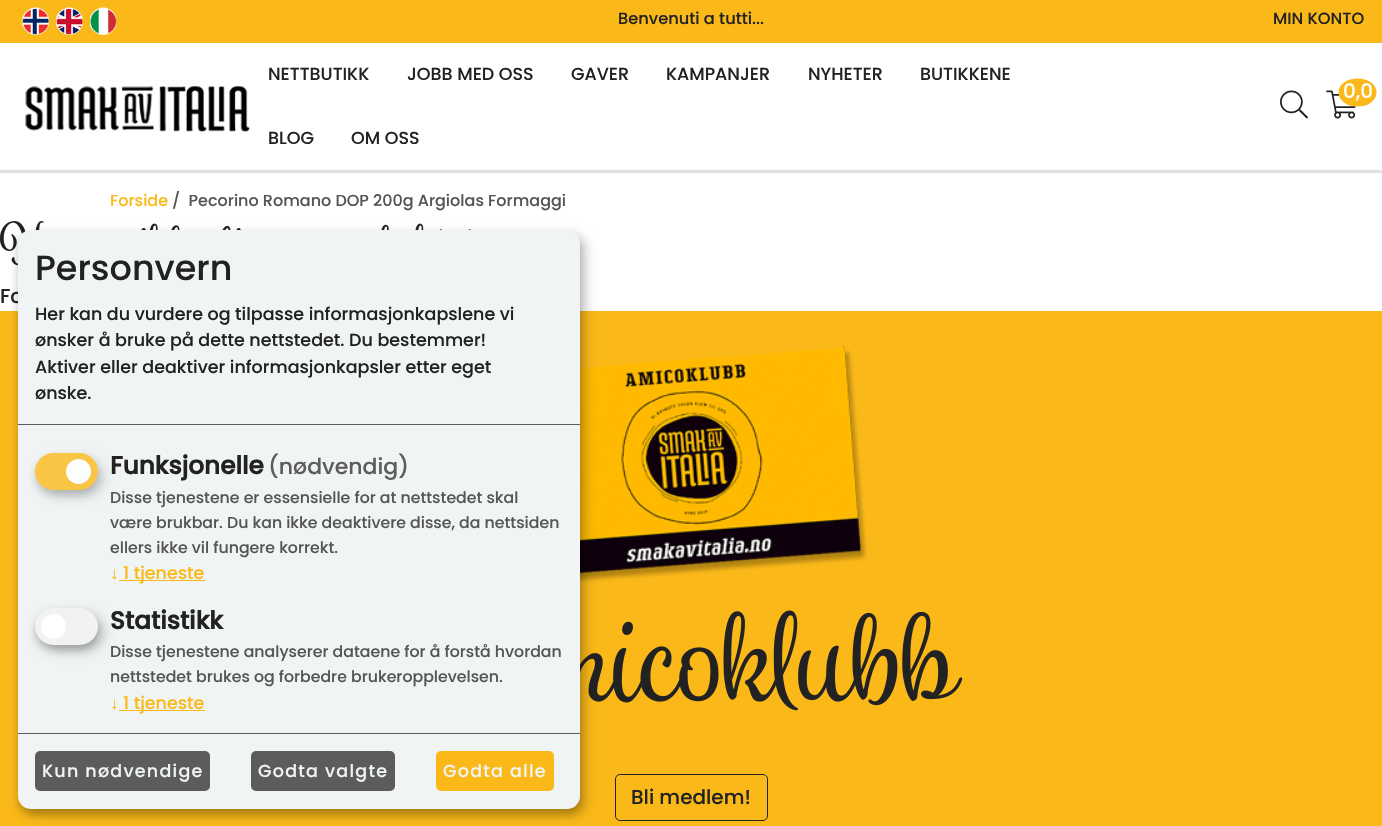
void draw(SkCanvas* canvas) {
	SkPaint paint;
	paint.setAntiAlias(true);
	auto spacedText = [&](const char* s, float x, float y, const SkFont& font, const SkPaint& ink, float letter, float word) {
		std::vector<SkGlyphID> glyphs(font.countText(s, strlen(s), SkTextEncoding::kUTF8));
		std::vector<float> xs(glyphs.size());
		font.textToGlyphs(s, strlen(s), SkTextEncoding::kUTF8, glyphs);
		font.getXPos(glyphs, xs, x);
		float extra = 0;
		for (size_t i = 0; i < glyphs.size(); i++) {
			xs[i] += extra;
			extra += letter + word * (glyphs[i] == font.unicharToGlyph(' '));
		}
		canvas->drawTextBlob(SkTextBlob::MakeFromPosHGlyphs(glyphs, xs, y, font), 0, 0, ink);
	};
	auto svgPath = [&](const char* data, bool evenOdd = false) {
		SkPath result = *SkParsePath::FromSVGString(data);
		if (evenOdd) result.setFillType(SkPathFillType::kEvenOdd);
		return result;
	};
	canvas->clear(0xffffffff);
	paint.setColor(0xfffbb919);
	canvas->drawRect(SkRect::MakeXYWH(0, 0, 1382, 43), paint);
	canvas->drawImageRect(SkImages::DeferredFromEncodedData(SkData::MakeFromFileName("img1.png")), SkRect::MakeXYWH(22, 7, 27, 28), SkSamplingOptions());
	canvas->drawImageRect(SkImages::DeferredFromEncodedData(SkData::MakeFromFileName("img2.png")), SkRect::MakeXYWH(56, 7, 27, 28), SkSamplingOptions());
	canvas->drawImageRect(SkImages::DeferredFromEncodedData(SkData::MakeFromFileName("img3.png")), SkRect::MakeXYWH(90, 7, 27, 28), SkSamplingOptions());
	SkFont f1(fontMgr->matchFamilyStyle("Poppins", SkFontStyle(500, SkFontStyle::kNormal_Width, SkFontStyle::kUpright_Slant)), 16.25);
	f1.setSubpixel(true);
	paint.setColor(0xff222222);
	canvas->drawString("Benvenuti a tutti...", 618, 24, f1, paint);
	canvas->drawString("MIN KONTO", 1273, 24, f1, paint);
	canvas->save();
	canvas->clipRect(SkRect::MakeXYWH(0, 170, 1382, 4));
	paint.setColor(0x33646464);
	paint.setMaskFilter(SkMaskFilter::MakeBlur(kNormal_SkBlurStyle, 0.5));
	canvas->drawRect(SkRect::MakeXYWH(0, 43, 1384, 130), paint);
	paint.setMaskFilter(nullptr);
	canvas->restore();
	canvas->drawImageRect(SkImages::DeferredFromEncodedData(SkData::MakeFromFileName("img4.png")), SkRect::MakeXYWH(25, 80, 225, 55), SkSamplingOptions());
	SkFont f2(fontMgr->matchFamilyStyle("Poppins", SkFontStyle(500, SkFontStyle::kNormal_Width, SkFontStyle::kUpright_Slant)), 17.5);
	f2.setSubpixel(true);
	paint.setColor(0xff222222);
	canvas->drawString("NETTBUTIKK", 268, 80, f2, paint);
	canvas->drawString("JOBB MED OSS", 407, 80, f2, paint);
	canvas->drawString("GAVER", 571, 80, f2, paint);
	canvas->drawString("KAMPANJER", 666, 80, f2, paint);
	canvas->drawString("NYHETER", 808, 80, f2, paint);
	canvas->drawString("BUTIKKENE", 920, 80, f2, paint);
	canvas->drawString("BLOG", 268, 144, f2, paint);
	canvas->drawString("OM OSS", 351, 144, f2, paint);
	canvas->drawImageRect(SkImages::DeferredFromEncodedData(SkData::MakeFromFileName("img5.png")), SkRect::MakeXYWH(1280, 90, 28, 29), SkSamplingOptions());
	canvas->drawImageRect(SkImages::DeferredFromEncodedData(SkData::MakeFromFileName("img6.png")), SkRect::MakeXYWH(1326, 90, 30, 29), SkSamplingOptions());
	paint.setColor(0xfffbb919);
	canvas->drawOval(SkRect::MakeXYWH(1338.5, 78.5, 38, 28), paint);
	paint.setStroke(true);
	paint.setStrokeWidth(1.2);
	canvas->drawPath(svgPath("M1357.5 79.5C1381.5 79.5 1381.5 105.5 1357.5 105.5C1333.5 105.5 1333.5 79.5 1357.5 79.5Z"), paint);
	SkFont f3(fontMgr->matchFamilyStyle("Poppins", SkFontStyle(500, SkFontStyle::kNormal_Width, SkFontStyle::kUpright_Slant)), 20);
	f3.setSubpixel(true);
	paint.setStroke(false);
	paint.setColor(0xffffffff);
	canvas->drawString("0,0", 1343, 98, f3, paint);
	SkFont f4(fontMgr->matchFamilyStyle("Poppins", SkFontStyle(500, SkFontStyle::kNormal_Width, SkFontStyle::kUpright_Slant)), 16);
	f4.setSubpixel(true);
	paint.setColor(0xfffbb919);
	canvas->drawString("Forside", 110, 206, f4, paint);
	paint.setColor(0xff555555);
	canvas->drawString("/  Pecorino Romano DOP 200g Argiolas Formaggi", 172, 206, f4, paint);
	canvas->drawImageRect(SkImages::DeferredFromEncodedData(SkData::MakeFromFileName("img7.png")), SkRect::MakeXYWH(0, 221, 471, 45), SkSamplingOptions());
	paint.setColor(0xff222222);
	canvas->drawString("Fo", 0, 303, f3, paint);
	paint.setColor(0xfffbb919);
	canvas->drawRect(SkRect::MakeXYWH(0, 311, 1382, 515), paint);
	canvas->drawImageRect(SkImages::DeferredFromEncodedData(SkData::MakeFromFileName("img8.png")), SkRect::MakeXYWH(580, 346, 287, 237), SkSamplingOptions());
	canvas->drawImageRect(SkImages::DeferredFromEncodedData(SkData::MakeFromFileName("img9.png")), SkRect::MakeXYWH(580, 610, 383, 101), SkSamplingOptions());
	paint.setStroke(true);
	paint.setStrokeWidth(1);
	paint.setColor(0xff222222);
	canvas->drawRoundRect(SkRect::MakeXYWH(615.5, 774.5, 152, 46), 4.5, 4.5, paint);
	paint.setStroke(false);
	canvas->drawString("Bli medlem!", 631, 804, f3, paint);
	paint.setColor(0x30000000);
	paint.setMaskFilter(SkMaskFilter::MakeBlur(kNormal_SkBlurStyle, 6));
	canvas->drawRoundRect(SkRect::MakeXYWH(24, 236, 562, 579), 13, 13, paint);
	paint.setMaskFilter(nullptr);
	paint.setColor(0x33000000);
	paint.setMaskFilter(SkMaskFilter::MakeBlur(kNormal_SkBlurStyle, 4));
	canvas->drawRoundRect(SkRect::MakeXYWH(18, 235, 562, 579), 13, 13, paint);
	paint.setMaskFilter(nullptr);
	paint.setColor(0xfff0f4f5);
	canvas->drawRoundRect(SkRect::MakeXYWH(18, 230, 562, 579), 13, 13, paint);
	paint.setColor(0xff5c5c5c);
	canvas->drawRect(SkRect::MakeXYWH(18, 424, 562, 1), paint);
	SkFont f5(fontMgr->matchFamilyStyle("Poppins", SkFontStyle(500, SkFontStyle::kNormal_Width, SkFontStyle::kUpright_Slant)), 35);
	f5.setSubpixel(true);
	paint.setColor(0xff222222);
	canvas->drawString("Personvern", 35, 280, f5, paint);
	canvas->drawString("Her kan du vurdere og tilpasse informasjonkapslene vi", 35, 320, f2, paint);
	canvas->drawString("ønsker å bruke på dette nettstedet. Du bestemmer!", 35, 346, f2, paint);
	canvas->drawString("Aktiver eller deaktiver informasjonkapsler etter eget", 35, 373, f2, paint);
	canvas->drawString("ønske.", 35, 399, f2, paint);
	paint.setColor(0x26000000);
	paint.setMaskFilter(SkMaskFilter::MakeBlur(kNormal_SkBlurStyle, 6));
	canvas->drawRoundRect(SkRect::MakeXYWH(41, 459, 63, 37), 18.5, 18.5, paint);
	paint.setMaskFilter(nullptr);
	paint.setColor(0x33303131);
	paint.setMaskFilter(SkMaskFilter::MakeBlur(kNormal_SkBlurStyle, 4));
	canvas->drawRoundRect(SkRect::MakeXYWH(35, 458, 63, 37), 18.5, 18.5, paint);
	paint.setMaskFilter(nullptr);
	paint.setColor(0xfff9c545);
	canvas->drawRoundRect(SkRect::MakeXYWH(35, 453, 63, 37), 18.5, 18.5, paint);
	paint.setColor(0xfffcfdfd);
	canvas->drawCircle(78.5, 471.5, 12.5, paint);
	SkFont f6(fontMgr->matchFamilyStyle("Poppins", SkFontStyle::Bold()), 24.75);
	f6.setSubpixel(true);
	paint.setColor(0xff222222);
	canvas->drawString("Funksjonelle", 110, 474, f6, paint);
	SkFont f7(fontMgr->matchFamilyStyle("Poppins", SkFontStyle(500, SkFontStyle::kNormal_Width, SkFontStyle::kUpright_Slant)), 22);
	f7.setSubpixel(true);
	paint.setColor(0xff5c5c5c);
	canvas->drawString("(nødvendig)", 268, 474, f7, paint);
	SkFont f8(fontMgr->matchFamilyStyle("Poppins", SkFontStyle(500, SkFontStyle::kNormal_Width, SkFontStyle::kUpright_Slant)), 15.75);
	f8.setSubpixel(true);
	paint.setColor(0xff555555);
	canvas->drawString("Disse tjenestene er essensielle for at nettstedet skal", 110, 503, f8, paint);
	canvas->drawString("være brukbar. Du kan ikke deaktivere disse, da nettsiden", 110, 528, f8, paint);
	canvas->drawString("ellers ikke vil fungere korrekt.", 110, 553, f8, paint);
	SkFont f9(fontMgr->matchFamilyStyle("Liberation Sans", SkFontStyle::Normal()), 17.5);
	f9.setSubpixel(true);
	paint.setColor(0xfffbb919);
	canvas->drawString("↓", 110, 579, f9, paint);
	canvas->drawRect(SkRect::MakeXYWH(119, 580, 86, 1), paint);
	canvas->drawString("1 tjeneste", 123, 579, f2, paint);
	paint.setColor(0x30000000);
	paint.setMaskFilter(SkMaskFilter::MakeBlur(kNormal_SkBlurStyle, 6));
	canvas->drawRoundRect(SkRect::MakeXYWH(41, 614, 63, 37), 18.5, 18.5, paint);
	paint.setMaskFilter(nullptr);
	paint.setColor(0x33000000);
	paint.setMaskFilter(SkMaskFilter::MakeBlur(kNormal_SkBlurStyle, 4));
	canvas->drawRoundRect(SkRect::MakeXYWH(35, 613, 63, 37), 18.5, 18.5, paint);
	paint.setMaskFilter(nullptr);
	paint.setColor(0xfff2f2f2);
	canvas->drawRoundRect(SkRect::MakeXYWH(35, 608, 63, 37), 18.5, 18.5, paint);
	paint.setColor(0xffffffff);
	canvas->drawCircle(53.5, 626.5, 12.5, paint);
	paint.setColor(0xff222222);
	canvas->drawString("Statistikk", 110, 629, f6, paint);
	paint.setColor(0xff555555);
	canvas->drawString("Disse tjenestene analyserer dataene for å forstå hvordan", 110, 657, f8, paint);
	canvas->drawString("nettstedet brukes og forbedre brukeropplevelsen.", 110, 682, f8, paint);
	paint.setColor(0xfffbb919);
	canvas->drawString("↓", 110, 709, f9, paint);
	canvas->drawRect(SkRect::MakeXYWH(119, 710, 86, 1), paint);
	canvas->drawString("1 tjeneste", 123, 709, f2, paint);
	paint.setColor(0xff5c5c5c);
	canvas->drawRect(SkRect::MakeXYWH(18, 733, 562, 1), paint);
	canvas->drawRoundRect(SkRect::MakeXYWH(35, 751, 175, 40), 5, 5, paint);
	paint.setColor(0xfff0f4f5);
	spacedText("Kun nødvendige", 42, 777, f2, paint, 1.25, 0);
	paint.setColor(0xff5c5c5c);
	canvas->drawRoundRect(SkRect::MakeXYWH(251, 751, 144, 40), 5, 5, paint);
	paint.setColor(0xfff0f4f5);
	spacedText("Godta valgte", 258, 777, f2, paint, 1.25, 0);
	paint.setColor(0xfffbb919);
	canvas->drawRoundRect(SkRect::MakeXYWH(436, 751, 118, 40), 5, 5, paint);
	paint.setColor(0xfff0f4f5);
	spacedText("Godta alle", 443, 777, f2, paint, 1.25, 0);
}
